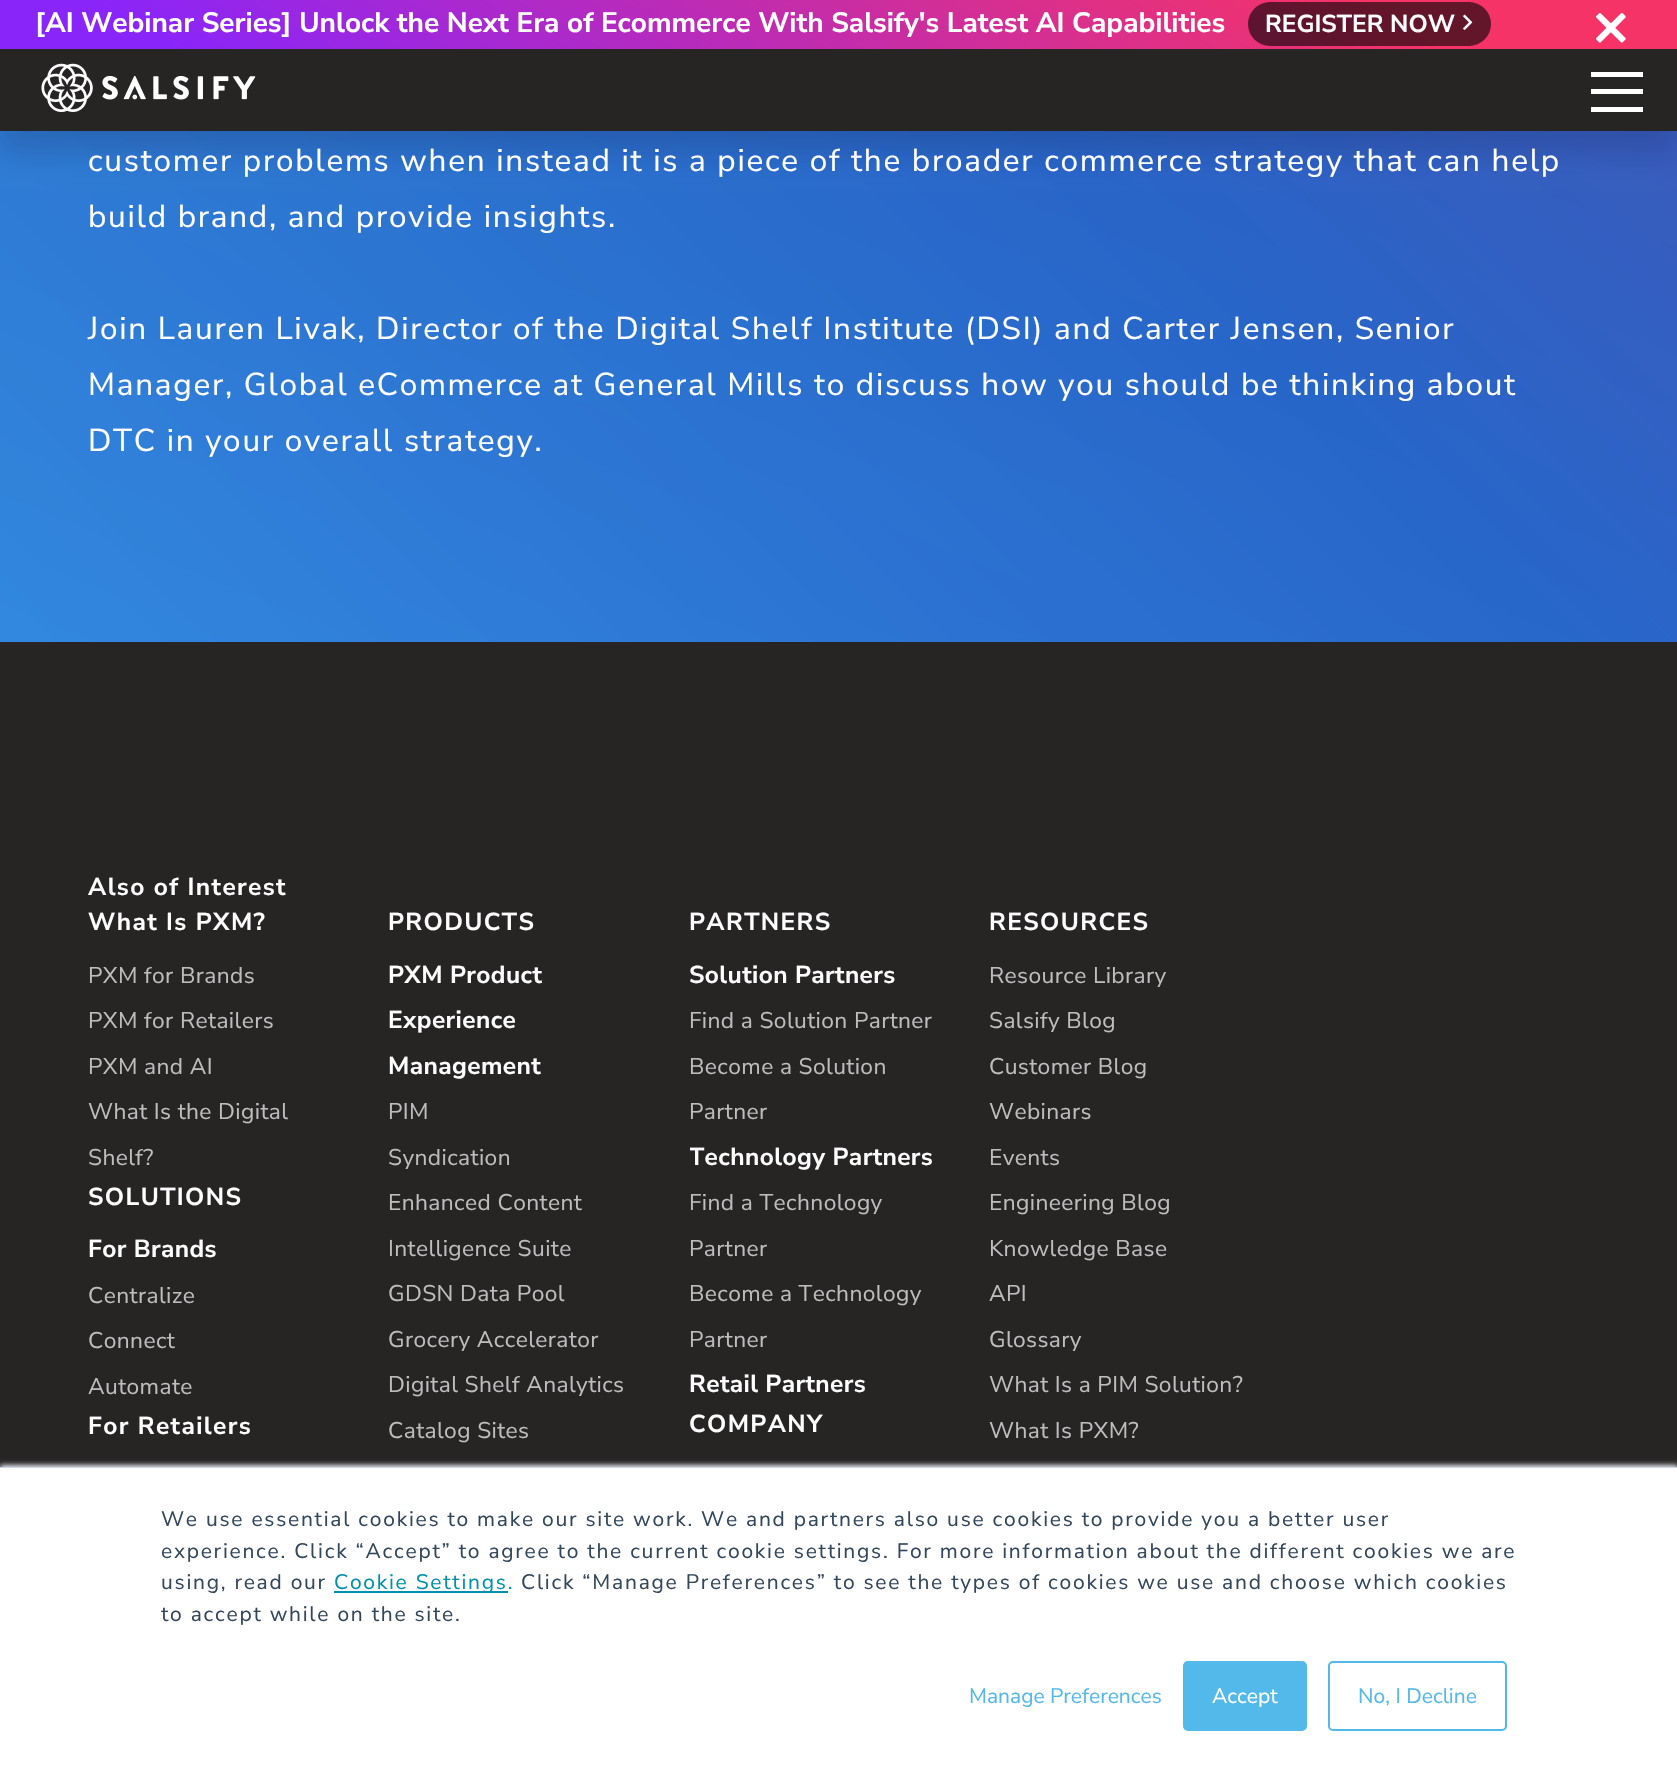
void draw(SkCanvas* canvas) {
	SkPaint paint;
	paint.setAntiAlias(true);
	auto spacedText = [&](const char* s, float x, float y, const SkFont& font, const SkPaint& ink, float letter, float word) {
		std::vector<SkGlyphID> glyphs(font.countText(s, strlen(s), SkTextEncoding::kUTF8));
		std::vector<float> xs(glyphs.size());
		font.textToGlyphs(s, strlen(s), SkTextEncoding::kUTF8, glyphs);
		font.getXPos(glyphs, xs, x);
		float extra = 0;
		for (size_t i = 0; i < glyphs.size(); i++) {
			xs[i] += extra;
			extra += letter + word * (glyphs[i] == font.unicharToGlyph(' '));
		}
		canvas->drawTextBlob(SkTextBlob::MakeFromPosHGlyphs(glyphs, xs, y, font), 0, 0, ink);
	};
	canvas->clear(0xffffffff);
	{
		const SkColor colors[] = {0xff804ec9, 0xff5e67dd, 0xff2e7bf0, 0xff39a1ff, 0xff41bfff};
		const float stops[] = {0, 0.25, 0.44, 0.7, 1};
		const SkPoint ends[] = {{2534, -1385}, {-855, 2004}};
		paint.setShader(SkGradientShader::MakeLinear(ends, colors, stops, 5, SkTileMode::kClamp));
		paint.setAlpha(255);
	}
	canvas->drawRect(SkRect::MakeXYWH(0, 131, 1677, 511), paint);
	{
		const SkColor colors[] = {0x6610173c, 0x0010173c};
		const float stops[] = {0.04, 1};
		const SkPoint ends[] = {{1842, -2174}, {-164, 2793}};
		paint.setShader(SkGradientShader::MakeLinear(ends, colors, stops, 2, SkTileMode::kClamp));
		paint.setAlpha(255);
	}
	canvas->drawRect(SkRect::MakeXYWH(0, 131, 1677, 511), paint);
	paint.setShader(nullptr);
	paint.setColor(0x2e10173c);
	paint.setMaskFilter(SkMaskFilter::MakeBlur(kNormal_SkBlurStyle, 13));
	canvas->drawRect(SkRect::MakeXYWH(0, 21, 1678, 131), paint);
	paint.setMaskFilter(nullptr);
	paint.setColor(0xff272424);
	canvas->drawRect(SkRect::MakeXYWH(0, 49, 1677, 82), paint);
	{
		const SkColor colors[] = {0xfff63366, 0xff8a25f9};
		const float stops[] = {0.18, 0.9};
		const SkPoint ends[] = {{1047, -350}, {632, 399}};
		paint.setShader(SkGradientShader::MakeLinear(ends, colors, stops, 2, SkTileMode::kClamp));
		paint.setAlpha(255);
	}
	canvas->drawRect(SkRect::MakeXYWH(0, 0, 1677, 49), paint);
	SkFont f1(fontMgr->matchFamilyStyle("Nunito Sans", SkFontStyle::Bold()), 28);
	f1.setSubpixel(true);
	paint.setShader(nullptr);
	paint.setColor(0xffffffff);
	canvas->drawString("[AI Webinar Series] Unlock the Next Era of Ecommerce With Salsify's Latest AI Capabilities", 35, 32, f1, paint);
	paint.setColor(0x99000000);
	canvas->drawRoundRect(SkRect::MakeXYWH(1248, 2, 243, 44), 22, 22, paint);
	SkFont f2(fontMgr->matchFamilyStyle("Nunito Sans", SkFontStyle::Bold()), 24.5);
	f2.setSubpixel(true);
	paint.setColor(0xffffffff);
	canvas->drawString("REGISTER NOW", 1265, 32, f2, paint);
	canvas->drawImageRect(SkImages::DeferredFromEncodedData(SkData::MakeFromFileName("img1.png")), SkRect::MakeXYWH(1463, 14, 10, 16), SkSamplingOptions());
	canvas->drawImageRect(SkImages::DeferredFromEncodedData(SkData::MakeFromFileName("img2.png")), SkRect::MakeXYWH(1596, 12, 30, 31), SkSamplingOptions());
	canvas->drawImageRect(SkImages::DeferredFromEncodedData(SkData::MakeFromFileName("img3.png")), SkRect::MakeXYWH(41, 63, 215, 49), SkSamplingOptions());
	canvas->drawRect(SkRect::MakeXYWH(1591, 89, 52, 5), paint);
	canvas->drawRect(SkRect::MakeXYWH(1591, 72, 52, 5), paint);
	canvas->drawRect(SkRect::MakeXYWH(1591, 107, 52, 5), paint);
	SkFont f3(fontMgr->matchFamilyStyle("Nunito Sans", SkFontStyle::Normal()), 31.5);
	f3.setSubpixel(true);
	spacedText("customer problems when instead it is a piece of the broader commerce strategy that can help", 88, 171, f3, paint, 1.75, 0);
	spacedText("build brand, and provide insights.", 88, 227, f3, paint, 1.75, 0);
	spacedText("Join Lauren Livak, Director of the Digital Shelf Institute (DSI) and Carter Jensen, Senior", 88, 339, f3, paint, 1.75, 0);
	spacedText("Manager, Global eCommerce at General Mills to discuss how you should be thinking about", 88, 395, f3, paint, 1.75, 0);
	spacedText("DTC in your overall strategy.", 88, 451, f3, paint, 1.75, 0);
	paint.setColor(0xff272424);
	canvas->drawRect(SkRect::MakeXYWH(0, 642, 1677, 825), paint);
	paint.setColor(0xffffffff);
	spacedText("Also of Interest", 88, 895, f2, paint, 1.4, 0);
	spacedText("What Is PXM?", 88, 930, f2, paint, 1.4, 0);
	SkFont f4(fontMgr->matchFamilyStyle("Nunito Sans", SkFontStyle::Normal()), 22.75);
	f4.setSubpixel(true);
	paint.setColor(0xffbebdbd);
	spacedText("PXM for Brands", 88, 983, f4, paint, 0.4, 0);
	spacedText("PXM for Retailers", 88, 1028, f4, paint, 0.4, 0);
	spacedText("PXM and AI", 88, 1074, f4, paint, 0.4, 0);
	spacedText("What Is the Digital", 88, 1119, f4, paint, 0.4, 0);
	spacedText("Shelf?", 88, 1165, f4, paint, 0.4, 0);
	paint.setColor(0xffffffff);
	spacedText("SOLUTIONS", 88, 1205, f2, paint, 1.4, 0);
	spacedText("For Brands", 88, 1257, f2, paint, 0.4, 0);
	paint.setColor(0xffbebdbd);
	spacedText("Centralize", 88, 1303, f4, paint, 0.4, 0);
	spacedText("Connect", 88, 1348, f4, paint, 0.4, 0);
	spacedText("Automate", 88, 1394, f4, paint, 0.4, 0);
	paint.setColor(0xffffffff);
	spacedText("For Retailers", 88, 1434, f2, paint, 1.4, 0);
	spacedText("PRODUCTS", 388, 930, f2, paint, 1.4, 0);
	spacedText("PXM Product", 388, 983, f2, paint, 0.4, 0);
	spacedText("Experience", 388, 1028, f2, paint, 0.4, 0);
	spacedText("Management", 388, 1074, f2, paint, 0.4, 0);
	paint.setColor(0xffbebdbd);
	spacedText("PIM", 388, 1119, f4, paint, 0.4, 0);
	spacedText("Syndication", 388, 1165, f4, paint, 0.4, 0);
	spacedText("Enhanced Content", 388, 1210, f4, paint, 0.4, 0);
	spacedText("Intelligence Suite", 388, 1256, f4, paint, 0.4, 0);
	spacedText("GDSN Data Pool", 388, 1301, f4, paint, 0.4, 0);
	spacedText("Grocery Accelerator", 388, 1347, f4, paint, 0.4, 0);
	spacedText("Digital Shelf Analytics", 388, 1392, f4, paint, 0.4, 0);
	spacedText("Catalog Sites", 388, 1438, f4, paint, 0.4, 0);
	paint.setColor(0xffffffff);
	spacedText("PARTNERS", 689, 930, f2, paint, 1.4, 0);
	spacedText("Solution Partners", 689, 983, f2, paint, 0.4, 0);
	paint.setColor(0xffbebdbd);
	spacedText("Find a Solution Partner", 689, 1028, f4, paint, 0.4, 0);
	spacedText("Become a Solution", 689, 1074, f4, paint, 0.4, 0);
	spacedText("Partner", 689, 1119, f4, paint, 0.4, 0);
	canvas->save();
	canvas->clipRect(SkRect::MakeXYWH(690, 1134, 255, 46));
	paint.setColor(0xffffffff);
	spacedText("Technology Partners", 689, 1165, f2, paint, 0.4, 0);
	canvas->restore();
	paint.setColor(0xffbebdbd);
	spacedText("Find a Technology", 689, 1210, f4, paint, 0.4, 0);
	spacedText("Partner", 689, 1256, f4, paint, 0.4, 0);
	spacedText("Become a Technology", 689, 1301, f4, paint, 0.4, 0);
	spacedText("Partner", 689, 1347, f4, paint, 0.4, 0);
	paint.setColor(0xffffffff);
	spacedText("Retail Partners", 689, 1392, f2, paint, 0.4, 0);
	spacedText("COMPANY", 689, 1432, f2, paint, 1.4, 0);
	spacedText("RESOURCES", 989, 930, f2, paint, 1.4, 0);
	paint.setColor(0xffbebdbd);
	spacedText("Resource Library", 989, 983, f4, paint, 0.4, 0);
	spacedText("Salsify Blog", 989, 1028, f4, paint, 0.4, 0);
	spacedText("Customer Blog", 989, 1074, f4, paint, 0.4, 0);
	spacedText("Webinars", 989, 1119, f4, paint, 0.4, 0);
	spacedText("Events", 989, 1165, f4, paint, 0.4, 0);
	spacedText("Engineering Blog", 989, 1210, f4, paint, 0.4, 0);
	spacedText("Knowledge Base", 989, 1256, f4, paint, 0.4, 0);
	spacedText("API", 989, 1301, f4, paint, 0.4, 0);
	spacedText("Glossary", 989, 1347, f4, paint, 0.4, 0);
	spacedText("What Is a PIM Solution?", 989, 1392, f4, paint, 0.4, 0);
	spacedText("What Is PXM?", 989, 1438, f4, paint, 0.4, 0);
	paint.setColor(0xffeaf0f6);
	paint.setMaskFilter(SkMaskFilter::MakeBlur(kNormal_SkBlurStyle, 2.5));
	canvas->drawRect(SkRect::MakeXYWH(0, 1465, 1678, 310), paint);
	paint.setMaskFilter(nullptr);
	paint.setColor(0xffcbd6e2);
	canvas->drawRect(SkRect::MakeXYWH(0, 1467, 1677, 1), paint);
	paint.setColor(0xffffffff);
	canvas->drawRect(SkRect::MakeXYWH(0, 1468, 1677, 307), paint);
	SkFont f5(fontMgr->matchFamilyStyle("Nunito Sans", SkFontStyle::Normal()), 21);
	f5.setSubpixel(true);
	paint.setColor(0xff33475b);
	spacedText("We use essential cookies to make our site work. We and partners also use cookies to provide you a better user", 161, 1526, f5, paint, 1.75, 0);
	spacedText("experience. Click “Accept” to agree to the current cookie settings. For more information about the different cookies we are", 161, 1558, f5, paint, 1.75, 0);
	spacedText("using, read our", 161, 1589, f5, paint, 1.75, 0);
	paint.setColor(0xff0091ae);
	canvas->drawRect(SkRect::MakeXYWH(334, 1591, 174, 2), paint);
	spacedText("Cookie Settings.", 334, 1589, f5, paint, 1.75, 0);
	paint.setColor(0xff33475b);
	spacedText("Click “Manage Preferences” to see the types of cookies we use and choose which cookies", 521, 1589, f5, paint, 1.75, 0);
	spacedText("to accept while on the site.", 161, 1621, f5, paint, 1.75, 0);
	paint.setColor(0xff53b8ea);
	canvas->drawString("Manage Preferences", 969, 1703, f5, paint);
	canvas->drawRoundRect(SkRect::MakeXYWH(1184, 1662, 122, 68), 4, 4, paint);
	paint.setStroke(true);
	paint.setStrokeWidth(2);
	canvas->drawRoundRect(SkRect::MakeXYWH(1184, 1662, 122, 68), 4, 4, paint);
	paint.setStroke(false);
	paint.setColor(0xffffffff);
	canvas->drawString("Accept", 1212, 1703, f5, paint);
	paint.setStroke(true);
	paint.setColor(0xff53b8ea);
	canvas->drawRoundRect(SkRect::MakeXYWH(1329, 1662, 177, 68), 4, 4, paint);
	paint.setStroke(false);
	canvas->drawString("No, I Decline", 1358, 1703, f5, paint);
}
